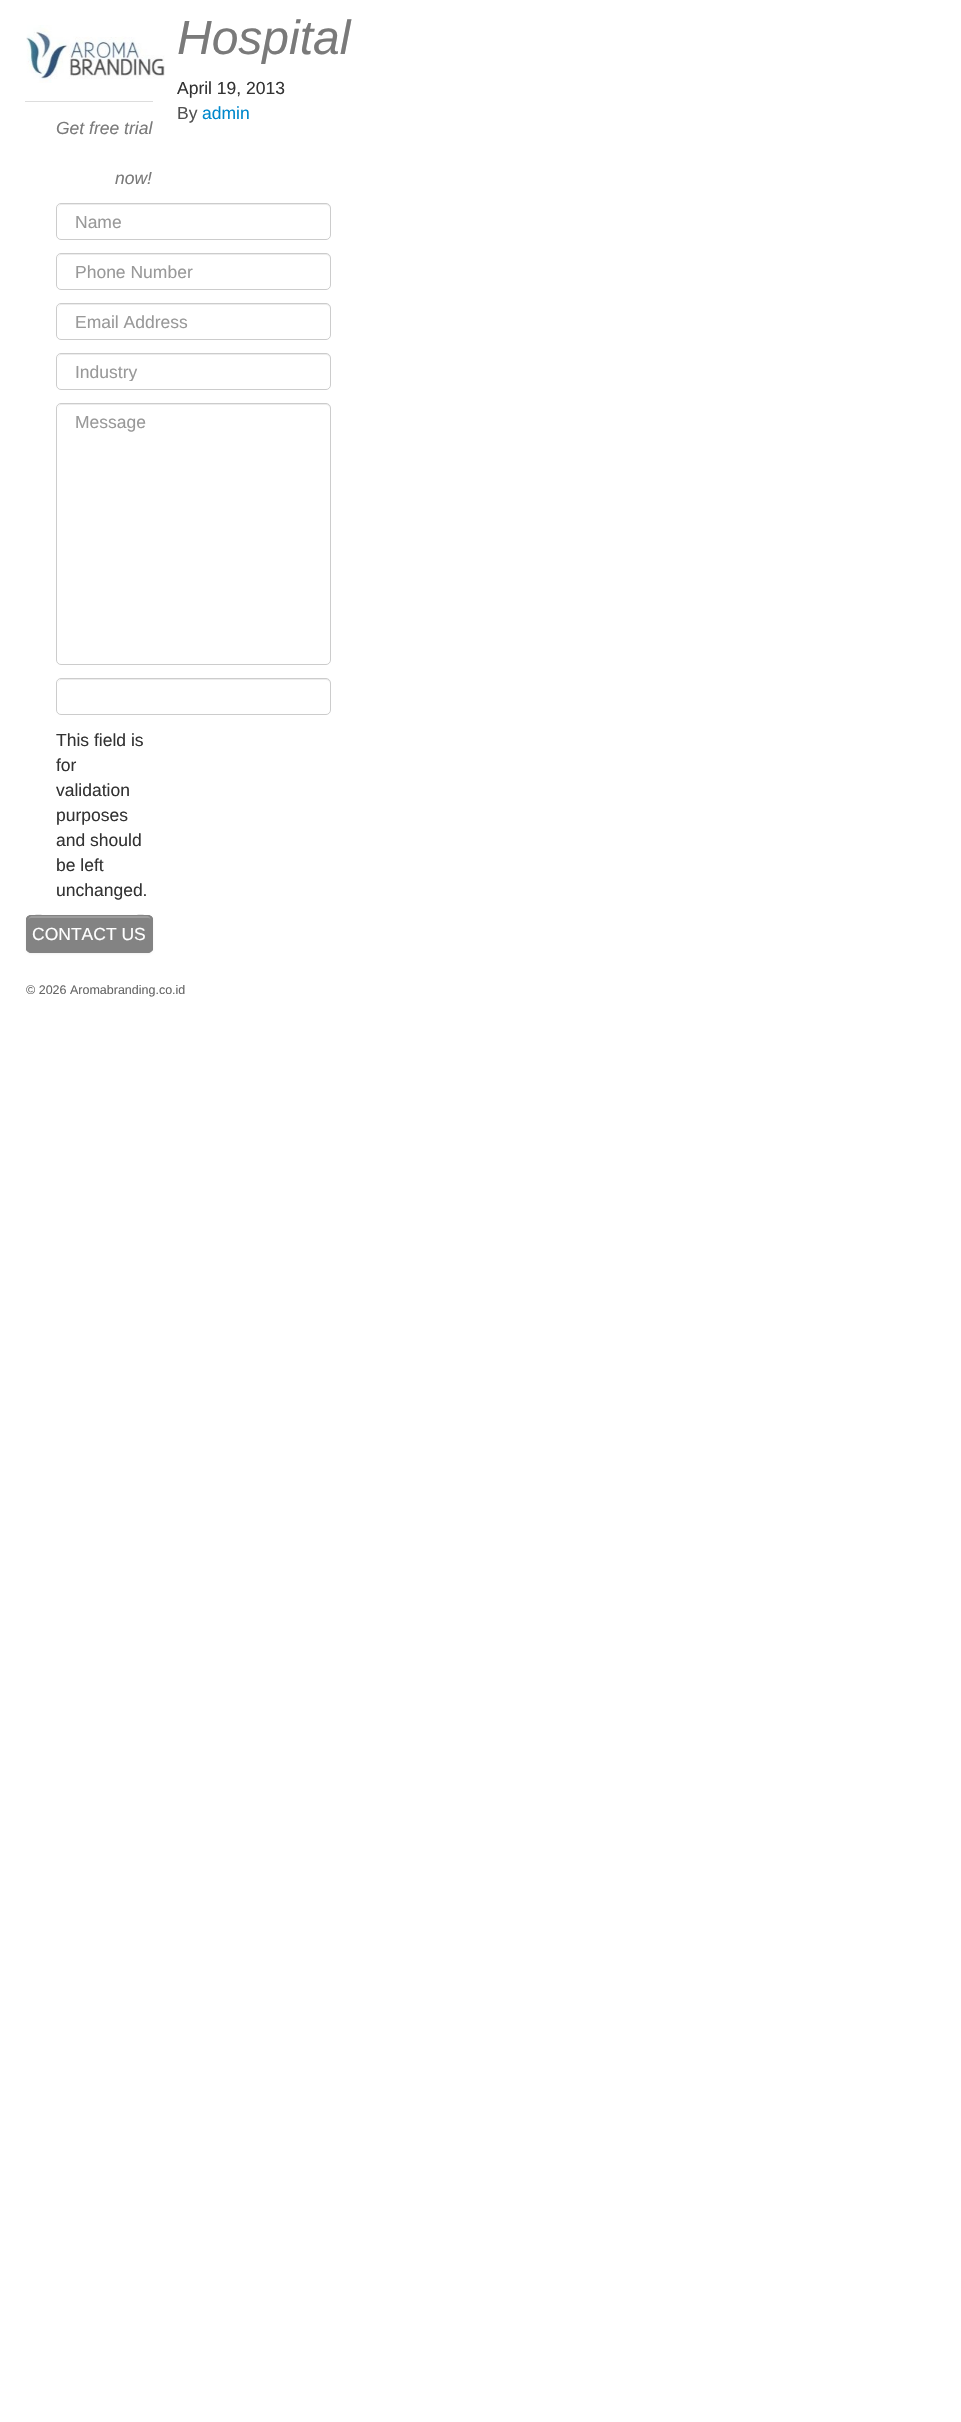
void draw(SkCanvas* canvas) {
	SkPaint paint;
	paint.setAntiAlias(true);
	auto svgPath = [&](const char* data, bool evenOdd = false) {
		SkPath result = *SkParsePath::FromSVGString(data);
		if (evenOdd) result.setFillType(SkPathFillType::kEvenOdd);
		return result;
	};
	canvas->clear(0xffffffff);
	SkFont f1(fontMgr->matchFamilyStyle("Liberation Sans", SkFontStyle::Italic()), 48);
	f1.setSubpixel(true);
	paint.setColor(0xff7a7a7a);
	canvas->drawString("Hospital", 177, 54, f1, paint);
	SkFont f2(fontMgr->matchFamilyStyle("Liberation Sans", SkFontStyle::Normal()), 17.5);
	f2.setSubpixel(true);
	paint.setColor(0xff333333);
	canvas->drawString("April 19, 2013", 177, 94, f2, paint);
	paint.setColor(0xff525252);
	canvas->drawString("By", 177, 119, f2, paint);
	paint.setColor(0xff0088cc);
	canvas->drawString("admin", 202, 119, f2, paint);
	paint.setColor(0xffdddddd);
	canvas->drawRect(SkRect::MakeXYWH(25, 101, 128, 1), paint);
	canvas->drawImageRect(SkImages::DeferredFromEncodedData(SkData::MakeFromFileName("img1.png")), SkRect::MakeXYWH(26, 25, 139, 58), SkSamplingOptions());
	SkFont f3(fontMgr->matchFamilyStyle("Liberation Sans", SkFontStyle::Italic()), 17.5);
	f3.setSubpixel(true);
	paint.setColor(0xff7a7a7a);
	canvas->drawString("Get free trial", 56, 134, f3, paint);
	canvas->drawString("now!", 115, 184, f3, paint);
	paint.setColor(0xffececec);
	canvas->drawPath(svgPath("M61 205H326C328 205 330 207 330 209C330 206 329 204 326 204H62C59 204 58 206 58 209C58 207 59 205 61 205Z"), paint);
	paint.setStroke(true);
	paint.setStrokeWidth(1);
	paint.setColor(0xffcccccc);
	canvas->drawRoundRect(SkRect::MakeXYWH(56.5, 203.5, 274, 36), 4.5, 4.5, paint);
	paint.setStroke(false);
	paint.setColor(0xff999999);
	canvas->drawString("Name", 75, 228, f2, paint);
	paint.setColor(0xffececec);
	canvas->drawPath(svgPath("M61 255H326C328 255 330 257 330 259C330 256 329 254 326 254H62C59 254 58 256 58 259C58 257 59 255 61 255Z"), paint);
	paint.setStroke(true);
	paint.setColor(0xffcccccc);
	canvas->drawRoundRect(SkRect::MakeXYWH(56.5, 253.5, 274, 36), 4.5, 4.5, paint);
	paint.setStroke(false);
	paint.setColor(0xff999999);
	canvas->drawString("Phone Number", 75, 278, f2, paint);
	paint.setColor(0xffececec);
	canvas->drawPath(svgPath("M61 305H326C328 305 330 307 330 309C330 306 329 304 326 304H62C59 304 58 306 58 309C58 307 59 305 61 305Z"), paint);
	paint.setStroke(true);
	paint.setColor(0xffcccccc);
	canvas->drawRoundRect(SkRect::MakeXYWH(56.5, 303.5, 274, 36), 4.5, 4.5, paint);
	paint.setStroke(false);
	paint.setColor(0xff999999);
	canvas->drawString("Email Address", 75, 328, f2, paint);
	paint.setColor(0xffececec);
	canvas->drawPath(svgPath("M61 355H326C328 355 330 357 330 359C330 356 329 354 326 354H62C59 354 58 356 58 359C58 357 59 355 61 355Z"), paint);
	paint.setStroke(true);
	paint.setColor(0xffcccccc);
	canvas->drawRoundRect(SkRect::MakeXYWH(56.5, 353.5, 274, 36), 4.5, 4.5, paint);
	canvas->save();
	canvas->clipRect(SkRect::MakeXYWH(65, 361, 258, 20));
	paint.setStroke(false);
	paint.setColor(0xff999999);
	canvas->drawString("Industry", 75, 378, f2, paint);
	canvas->restore();
	paint.setColor(0xffececec);
	canvas->drawPath(svgPath("M61 405H326C328 405 330 407 330 409C330 406 329 404 326 404H62C59 404 58 406 58 409C58 407 59 405 61 405Z"), paint);
	paint.setStroke(true);
	paint.setColor(0xffcccccc);
	canvas->drawRoundRect(SkRect::MakeXYWH(56.5, 403.5, 274, 261), 4.5, 4.5, paint);
	paint.setStroke(false);
	paint.setColor(0xff999999);
	canvas->drawString("Message", 75, 428, f2, paint);
	paint.setColor(0xffececec);
	canvas->drawPath(svgPath("M61 680H326C328 680 330 682 330 684C330 681 329 679 326 679H62C59 679 58 681 58 684C58 682 59 680 61 680Z"), paint);
	paint.setStroke(true);
	paint.setColor(0xffcccccc);
	canvas->drawRoundRect(SkRect::MakeXYWH(56.5, 678.5, 274, 36), 4.5, 4.5, paint);
	paint.setStroke(false);
	paint.setColor(0xff333333);
	canvas->drawString("This field is", 56, 746, f2, paint);
	canvas->drawString("for", 56, 771, f2, paint);
	canvas->drawString("validation", 56, 796, f2, paint);
	canvas->drawString("purposes", 56, 821, f2, paint);
	canvas->drawString("and should", 56, 846, f2, paint);
	canvas->drawString("be left", 56, 871, f2, paint);
	canvas->drawString("unchanged.", 56, 896, f2, paint);
	paint.setColor(0x0d000000);
	paint.setMaskFilter(SkMaskFilter::MakeBlur(kNormal_SkBlurStyle, 1));
	canvas->drawRoundRect(SkRect::MakeXYWH(26, 916, 127, 38), 5, 5, paint);
	paint.setMaskFilter(nullptr);
	paint.setColor(0xff838383);
	canvas->drawRoundRect(SkRect::MakeXYWH(26, 915, 127, 38), 5, 5, paint);
	canvas->save();
	canvas->clipPath(svgPath("M31 915H148C151 915 153 917 153 920V948C153 951 151 953 148 953H31C28 953 26 951 26 948V920C26 917 28 915 31 915Z"), true);
	canvas->drawRect(SkRect::MakeXYWH(26, 916, 127, 35), paint);
	canvas->restore();
	paint.setColor(0xff9c9c9c);
	canvas->drawPath(svgPath("M31 918H148C150 918 151 919 151 921C151 911 131 916 128 916H51C48 916 28 911 28 921C28 919 29 918 31 918Z"), paint);
	paint.setStroke(true);
	paint.setColor(0xff838383);
	canvas->drawRoundRect(SkRect::MakeXYWH(26.5, 915.5, 126, 37), 4.5, 4.5, paint);
	paint.setStroke(false);
	paint.setColor(0xffffffff);
	canvas->drawString("CONTACT US", 32, 940, f2, paint);
	SkFont f4(fontMgr->matchFamilyStyle("Liberation Sans", SkFontStyle::Normal()), 12.5);
	f4.setSubpixel(true);
	paint.setColor(0xff666666);
	canvas->drawString("© 2026 Aromabranding.co.id", 26, 994, f4, paint);
}
